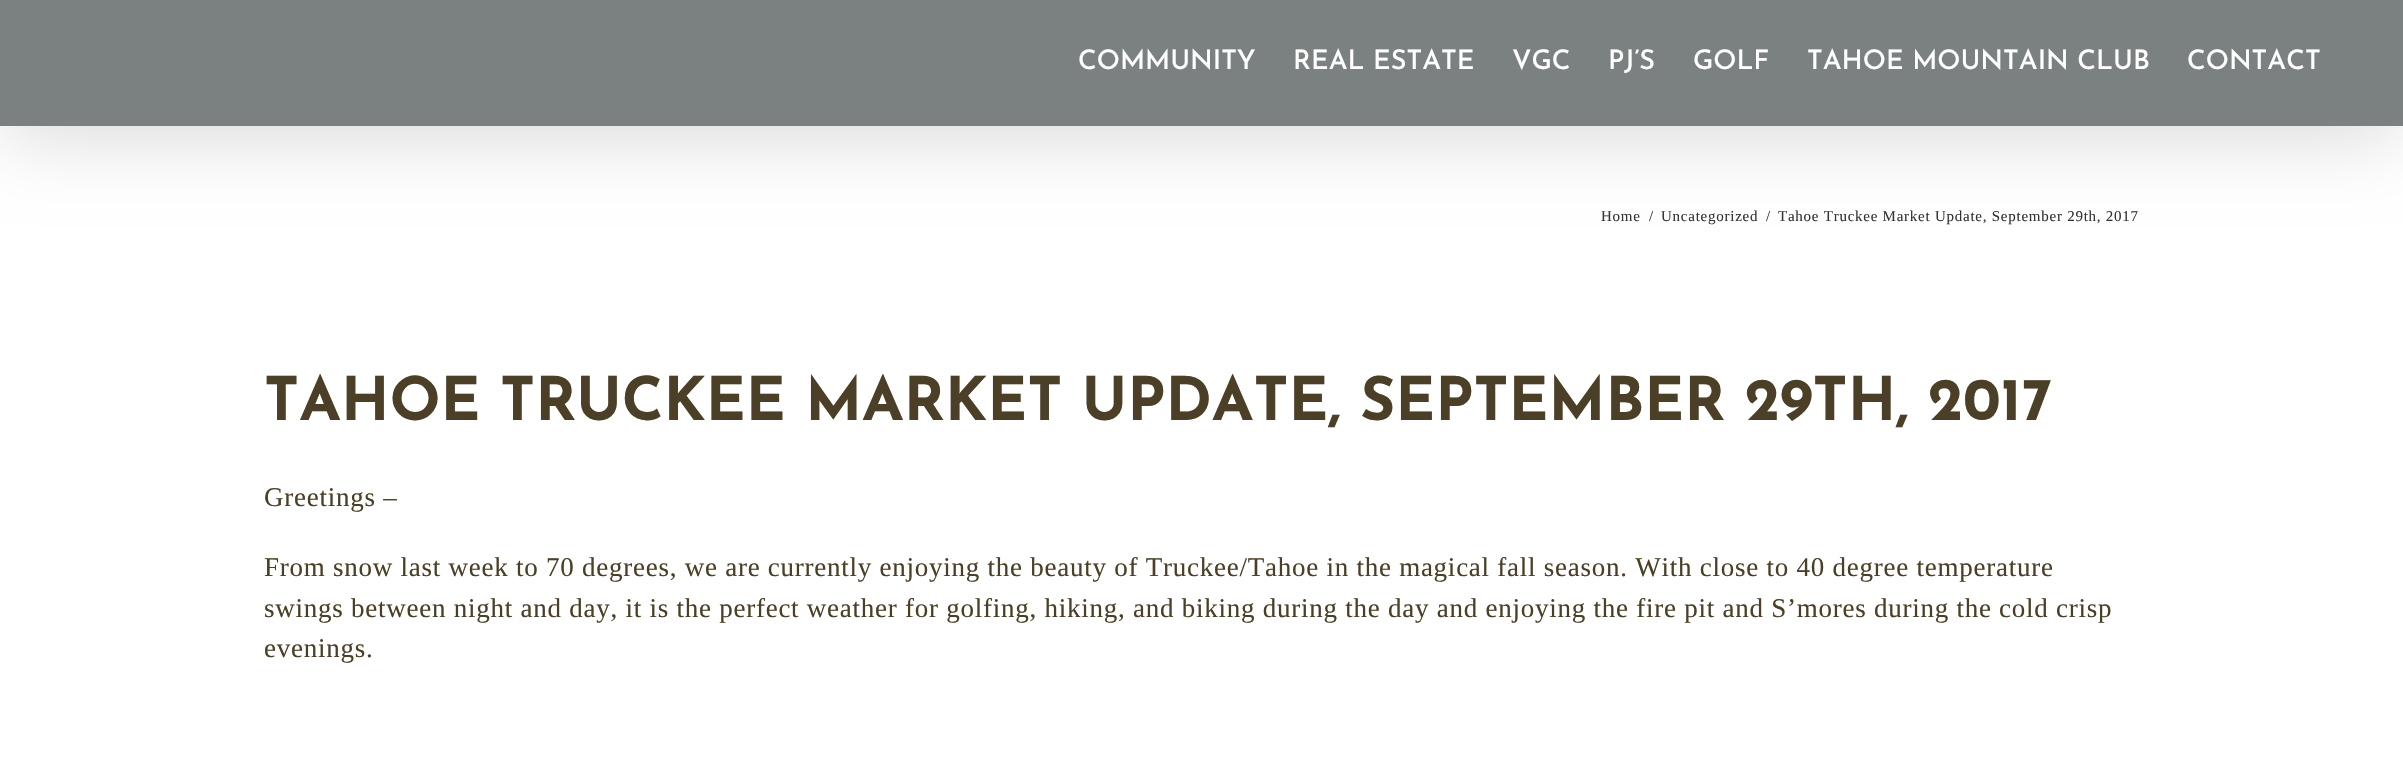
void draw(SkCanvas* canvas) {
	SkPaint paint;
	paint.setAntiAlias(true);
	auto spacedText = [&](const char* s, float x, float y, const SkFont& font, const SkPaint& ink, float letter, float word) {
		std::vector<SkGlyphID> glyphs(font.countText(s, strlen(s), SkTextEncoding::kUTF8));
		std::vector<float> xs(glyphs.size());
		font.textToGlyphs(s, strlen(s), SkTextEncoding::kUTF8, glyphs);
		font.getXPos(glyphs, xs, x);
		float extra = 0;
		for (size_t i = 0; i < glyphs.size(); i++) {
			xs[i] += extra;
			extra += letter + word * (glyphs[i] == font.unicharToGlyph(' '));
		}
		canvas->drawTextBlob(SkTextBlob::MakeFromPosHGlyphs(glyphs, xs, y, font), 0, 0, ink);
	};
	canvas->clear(0xffffffff);
	paint.setColor(0x24000000);
	paint.setMaskFilter(SkMaskFilter::MakeBlur(kNormal_SkBlurStyle, 37.5));
	canvas->drawRect(SkRect::MakeXYWH(3, 18, 2397, 120), paint);
	paint.setMaskFilter(nullptr);
	paint.setColor(0xff7b8181);
	canvas->drawRect(SkRect::MakeXYWH(0, 0, 2403, 126), paint);
	SkFont f1(fontMgr->matchFamilyStyle("Josefin Sans", SkFontStyle(500, SkFontStyle::kNormal_Width, SkFontStyle::kUpright_Slant)), 27);
	f1.setSubpixel(true);
	paint.setColor(0xffffffff);
	canvas->drawString("COMMUNITY", 1078, 69, f1, paint);
	canvas->drawString("REAL ESTATE", 1293, 69, f1, paint);
	canvas->drawString("VGC", 1512, 69, f1, paint);
	canvas->drawString("PJ’S", 1608, 69, f1, paint);
	canvas->drawString("GOLF", 1693, 69, f1, paint);
	canvas->drawString("TAHOE MOUNTAIN CLUB", 1807, 69, f1, paint);
	canvas->drawString("CONTACT", 2187, 69, f1, paint);
	SkFont f2(fontMgr->matchFamilyStyle("Liberation Serif", SkFontStyle::Normal()), 15);
	f2.setSubpixel(true);
	paint.setColor(0xff333333);
	spacedText("Home", 1601, 221, f2, paint, 0.75, 0);
	spacedText("/", 1649, 221, f2, paint, 0.75, 0);
	spacedText("Uncategorized", 1661, 221, f2, paint, 0.75, 0);
	spacedText("/", 1766, 221, f2, paint, 0.75, 0);
	spacedText("Tahoe Truckee Market Update, September 29th, 2017", 1778, 221, f2, paint, 0.75, 0);
	SkFont f3(fontMgr->matchFamilyStyle("Josefin Sans", SkFontStyle::Bold()), 60);
	f3.setSubpixel(true);
	paint.setColor(0xff4b4027);
	canvas->drawString("TAHOE TRUCKEE MARKET UPDATE, SEPTEMBER 29TH, 2017", 264, 420, f3, paint);
	SkFont f4(fontMgr->matchFamilyStyle("Liberation Serif", SkFontStyle::Normal()), 27);
	f4.setSubpixel(true);
	spacedText("Greetings –", 264, 506, f4, paint, 0.75, 0);
	spacedText("From snow last week to 70 degrees, we are currently enjoying the beauty of Truckee/Tahoe in the magical fall season. With close to 40 degree temperature", 264, 576, f4, paint, 0.75, 0);
	spacedText("swings between night and day, it is the perfect weather for golfing, hiking, and biking during the day and enjoying the fire pit and S’mores during the cold crisp", 264, 617, f4, paint, 0.75, 0);
	spacedText("evenings.", 264, 657, f4, paint, 0.75, 0);
}
